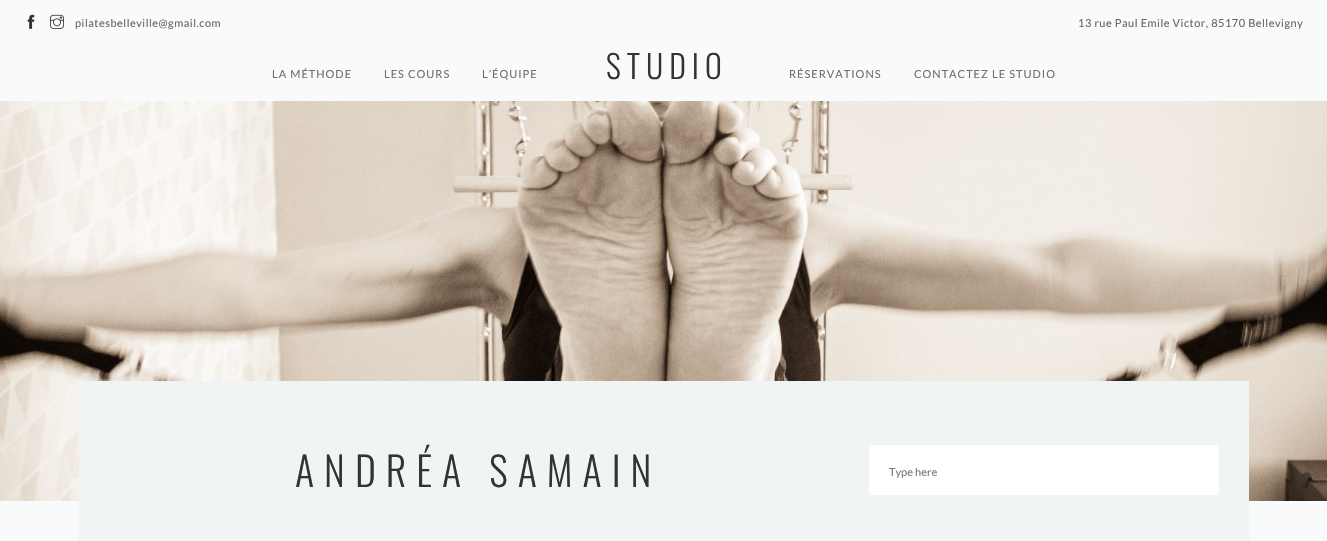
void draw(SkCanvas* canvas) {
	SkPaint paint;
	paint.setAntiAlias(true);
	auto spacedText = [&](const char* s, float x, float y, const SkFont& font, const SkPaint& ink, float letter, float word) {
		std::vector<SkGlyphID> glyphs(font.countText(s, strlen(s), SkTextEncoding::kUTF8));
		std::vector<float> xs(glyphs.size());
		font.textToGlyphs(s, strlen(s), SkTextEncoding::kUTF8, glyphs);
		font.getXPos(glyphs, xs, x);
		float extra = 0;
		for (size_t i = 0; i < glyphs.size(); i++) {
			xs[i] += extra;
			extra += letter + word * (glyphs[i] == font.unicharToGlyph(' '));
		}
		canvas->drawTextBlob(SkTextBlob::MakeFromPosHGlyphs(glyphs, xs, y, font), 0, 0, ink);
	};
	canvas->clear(0xfff9fafb);
	canvas->drawImageRect(SkImages::DeferredFromEncodedData(SkData::MakeFromFileName("img1.png")), SkRect::MakeXYWH(27, 14, 8, 15), SkSamplingOptions());
	canvas->drawImageRect(SkImages::DeferredFromEncodedData(SkData::MakeFromFileName("img2.png")), SkRect::MakeXYWH(50, 14, 14, 15), SkSamplingOptions());
	SkFont f1(fontMgr->matchFamilyStyle("Lato", SkFontStyle::Normal()), 11);
	f1.setSubpixel(true);
	paint.setColor(0xff666666);
	spacedText("pilatesbelleville@gmail.com", 75, 27, f1, paint, 0.5, 0);
	spacedText("13 rue Paul Emile Victor, 85170 Bellevigny", 1078, 27, f1, paint, 0.5, 0);
	paint.setColor(0xff6e6f6f);
	spacedText("LA MÉTHODE", 272, 78, f1, paint, 1, 0);
	spacedText("LES COURS", 384, 78, f1, paint, 1, 0);
	spacedText("L’ÉQUIPE", 482, 78, f1, paint, 1, 0);
	SkFont f2(fontMgr->matchFamilyStyle("Oswald", SkFontStyle(300, SkFontStyle::kNormal_Width, SkFontStyle::kUpright_Slant)), 32);
	f2.setSubpixel(true);
	paint.setColor(0xff333333);
	spacedText("STUDIO", 606, 79, f2, paint, 6, 0);
	paint.setColor(0xff6e6f6f);
	spacedText("RÉSERVATIONS", 789, 78, f1, paint, 1, 0);
	spacedText("CONTACTEZ LE STUDIO", 914, 78, f1, paint, 1, 0);
	canvas->drawImageRect(SkImages::DeferredFromEncodedData(SkData::MakeFromFileName("img3.png")), SkRect::MakeXYWH(0, 101, 1327, 400), SkSamplingOptions());
	paint.setColor(0xfff1f4f5);
	canvas->drawRect(SkRect::MakeXYWH(79, 381, 1170, 160), paint);
	SkFont f3(fontMgr->matchFamilyStyle("Oswald", SkFontStyle(300, SkFontStyle::kNormal_Width, SkFontStyle::kUpright_Slant)), 40);
	f3.setSubpixel(true);
	paint.setColor(0xff333333);
	spacedText("ANDRÉA SAMAIN", 295, 487, f3, paint, 10, 0);
	paint.setColor(0xffffffff);
	canvas->drawRect(SkRect::MakeXYWH(869, 445, 350, 50), paint);
	paint.setColor(0xff777777);
	canvas->drawString("Type here", 889, 476, f1, paint);
}
